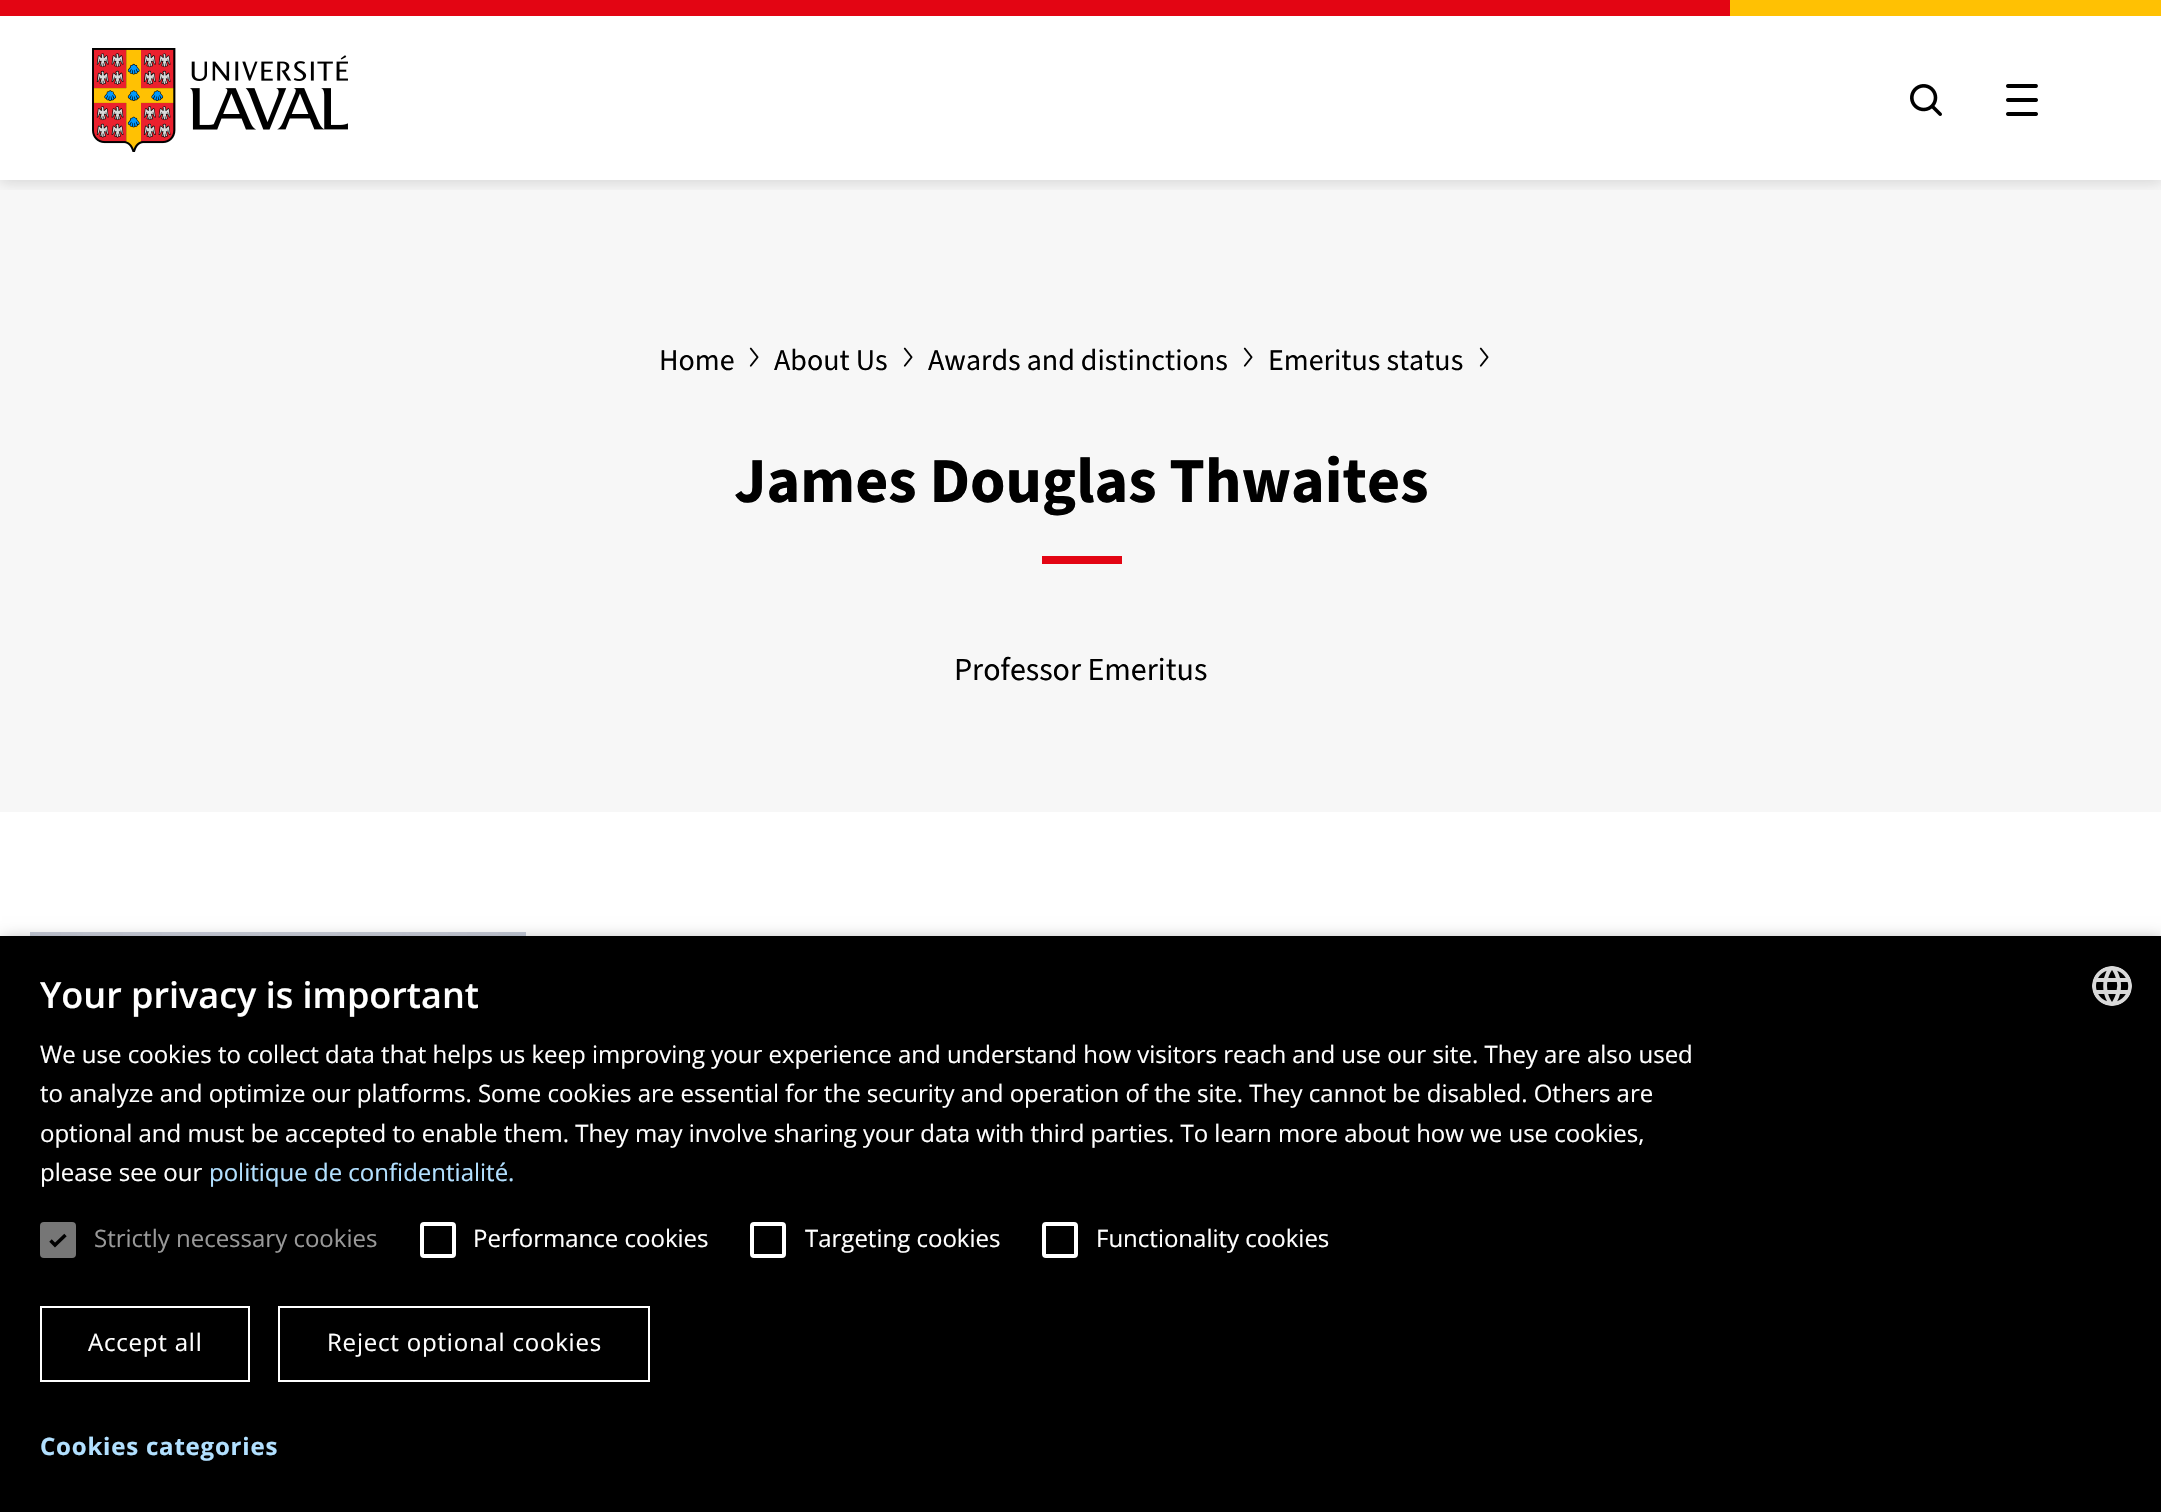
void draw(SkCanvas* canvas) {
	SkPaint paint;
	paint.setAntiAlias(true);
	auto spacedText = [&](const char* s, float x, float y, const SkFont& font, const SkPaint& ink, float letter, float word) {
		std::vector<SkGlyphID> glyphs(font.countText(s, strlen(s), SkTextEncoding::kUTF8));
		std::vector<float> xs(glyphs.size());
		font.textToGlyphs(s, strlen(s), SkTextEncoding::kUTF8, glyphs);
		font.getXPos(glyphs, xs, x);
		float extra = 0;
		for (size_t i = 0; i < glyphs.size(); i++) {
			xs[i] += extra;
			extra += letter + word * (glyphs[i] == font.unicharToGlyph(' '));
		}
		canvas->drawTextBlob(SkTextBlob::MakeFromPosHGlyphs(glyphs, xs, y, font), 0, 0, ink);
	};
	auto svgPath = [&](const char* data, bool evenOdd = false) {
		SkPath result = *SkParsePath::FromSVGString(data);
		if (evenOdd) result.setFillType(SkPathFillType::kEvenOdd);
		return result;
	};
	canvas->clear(0xffffffff);
	paint.setColor(0xfff7f7f7);
	canvas->drawRect(SkRect::MakeXYWH(0, 180, 2161, 632), paint);
	canvas->save();
	canvas->clipRect(SkRect::MakeXYWH(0, 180, 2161, 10));
	paint.setColor(0x26000000);
	paint.setMaskFilter(SkMaskFilter::MakeBlur(kNormal_SkBlurStyle, 7));
	canvas->drawRect(SkRect::MakeXYWH(0, 2, 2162, 180), paint);
	paint.setMaskFilter(nullptr);
	canvas->restore();
	paint.setColor(0xffe30513);
	canvas->drawRect(SkRect::MakeXYWH(0, 0, 1730, 16), paint);
	paint.setColor(0xffffc103);
	canvas->drawRect(SkRect::MakeXYWH(1730, 0, 431, 16), paint);
	canvas->drawImageRect(SkImages::DeferredFromEncodedData(SkData::MakeFromFileName("img1.png")), SkRect::MakeXYWH(92, 48, 256, 104), SkSamplingOptions());
	canvas->drawImageRect(SkImages::DeferredFromEncodedData(SkData::MakeFromFileName("img2.png")), SkRect::MakeXYWH(1910, 84, 32, 32), SkSamplingOptions());
	canvas->drawImageRect(SkImages::DeferredFromEncodedData(SkData::MakeFromFileName("img3.png")), SkRect::MakeXYWH(2006, 84, 32, 32), SkSamplingOptions());
	SkFont f1(fontMgr->matchFamilyStyle("Source Sans 3", SkFontStyle::Normal()), 30);
	f1.setSubpixel(true);
	paint.setColor(0xff000000);
	canvas->drawString("Home", 659, 370, f1, paint);
	canvas->drawImageRect(SkImages::DeferredFromEncodedData(SkData::MakeFromFileName("img4.png")), SkRect::MakeXYWH(749, 347, 10, 20), SkSamplingOptions());
	canvas->drawString("About Us", 774, 370, f1, paint);
	canvas->drawImageRect(SkImages::DeferredFromEncodedData(SkData::MakeFromFileName("img4.png")), SkRect::MakeXYWH(903, 347, 10, 20), SkSamplingOptions());
	canvas->drawString("Awards and distinctions", 928, 370, f1, paint);
	canvas->drawImageRect(SkImages::DeferredFromEncodedData(SkData::MakeFromFileName("img4.png")), SkRect::MakeXYWH(1243, 347, 10, 20), SkSamplingOptions());
	canvas->drawString("Emeritus status", 1268, 370, f1, paint);
	canvas->drawImageRect(SkImages::DeferredFromEncodedData(SkData::MakeFromFileName("img4.png")), SkRect::MakeXYWH(1479, 347, 10, 20), SkSamplingOptions());
	SkFont f2(fontMgr->matchFamilyStyle("Source Sans 3", SkFontStyle::Bold()), 64);
	f2.setSubpixel(true);
	canvas->drawString("James Douglas Thwaites", 734, 502, f2, paint);
	paint.setColor(0xffe30513);
	canvas->drawRect(SkRect::MakeXYWH(1042, 556, 80, 8), paint);
	SkFont f3(fontMgr->matchFamilyStyle("Source Sans 3", SkFontStyle::Normal()), 32);
	f3.setSubpixel(true);
	paint.setColor(0xff000000);
	canvas->drawString("Professor Emeritus", 954, 680, f3, paint);
	canvas->drawImageRect(SkImages::DeferredFromEncodedData(SkData::MakeFromFileName("img5.png")), SkRect::MakeXYWH(30, 932, 496, 4), SkSamplingOptions());
	paint.setColor(0x59000000);
	paint.setMaskFilter(SkMaskFilter::MakeBlur(kNormal_SkBlurStyle, 8));
	canvas->drawRect(SkRect::MakeXYWH(2, 940, 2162, 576), paint);
	paint.setMaskFilter(nullptr);
	paint.setColor(0xff000000);
	canvas->drawRect(SkRect::MakeXYWH(0, 936, 2161, 576), paint);
	SkFont f4(fontMgr->matchFamilyStyle("Open Sans", SkFontStyle(600, SkFontStyle::kNormal_Width, SkFontStyle::kUpright_Slant)), 36);
	f4.setSubpixel(true);
	paint.setColor(0xffffffff);
	canvas->drawString("Your privacy is important", 40, 1008, f4, paint);
	canvas->drawImageRect(SkImages::DeferredFromEncodedData(SkData::MakeFromFileName("img6.png")), SkRect::MakeXYWH(2092, 966, 40, 40), SkSamplingOptions());
	SkFont f5(fontMgr->matchFamilyStyle("Open Sans", SkFontStyle::Normal()), 24);
	f5.setSubpixel(true);
	canvas->drawString("We use cookies to collect data that helps us keep improving your experience and understand how visitors reach and use our site. They are also used", 40, 1063, f5, paint);
	canvas->drawString("to analyze and optimize our platforms. Some cookies are essential for the security and operation of the site. They cannot be disabled. Others are", 40, 1102, f5, paint);
	canvas->drawString("optional and must be accepted to enable them. They may involve sharing your data with third parties. To learn more about how we use cookies,", 40, 1142, f5, paint);
	canvas->drawString("please see our", 40, 1181, f5, paint);
	paint.setColor(0xffb2e0ff);
	canvas->drawString("politique de confidentialité.", 209, 1181, f5, paint);
	paint.setColor(0xff767676);
	canvas->drawRoundRect(SkRect::MakeXYWH(40, 1222, 36, 36), 4, 4, paint);
	paint.setStroke(true);
	paint.setStrokeWidth(3.5);
	paint.setColor(0xff000000);
	canvas->drawPath(svgPath("M50.5 1240.5L55 1245L65.5 1235"), paint);
	paint.setStroke(false);
	paint.setColor(0xff999999);
	canvas->drawString("Strictly necessary cookies", 94, 1247, f5, paint);
	paint.setStroke(true);
	paint.setStrokeWidth(4);
	paint.setColor(0xffffffff);
	canvas->drawRoundRect(SkRect::MakeXYWH(422, 1224, 32, 32), 2, 2, paint);
	paint.setStroke(false);
	canvas->drawString("Performance cookies", 473, 1247, f5, paint);
	paint.setStroke(true);
	canvas->drawRoundRect(SkRect::MakeXYWH(752, 1224, 32, 32), 2, 2, paint);
	paint.setStroke(false);
	canvas->drawString("Targeting cookies", 805, 1247, f5, paint);
	paint.setStroke(true);
	canvas->drawRoundRect(SkRect::MakeXYWH(1044, 1224, 32, 32), 2, 2, paint);
	paint.setStroke(false);
	canvas->drawString("Functionality cookies", 1096, 1247, f5, paint);
	paint.setStroke(true);
	paint.setStrokeWidth(2);
	canvas->drawRect(SkRect::MakeXYWH(41, 1307, 208, 74), paint);
	paint.setStroke(false);
	spacedText("Accept all", 88, 1351, f5, paint, 0.8, 0);
	paint.setStroke(true);
	canvas->drawRect(SkRect::MakeXYWH(279, 1307, 370, 74), paint);
	paint.setStroke(false);
	spacedText("Reject optional cookies", 327, 1351, f5, paint, 0.8, 0);
	SkFont f6(fontMgr->matchFamilyStyle("Open Sans", SkFontStyle::Bold()), 24);
	f6.setSubpixel(true);
	paint.setColor(0xffb2e0ff);
	spacedText("Cookies categories", 40, 1455, f6, paint, 0.8, 0);
}
